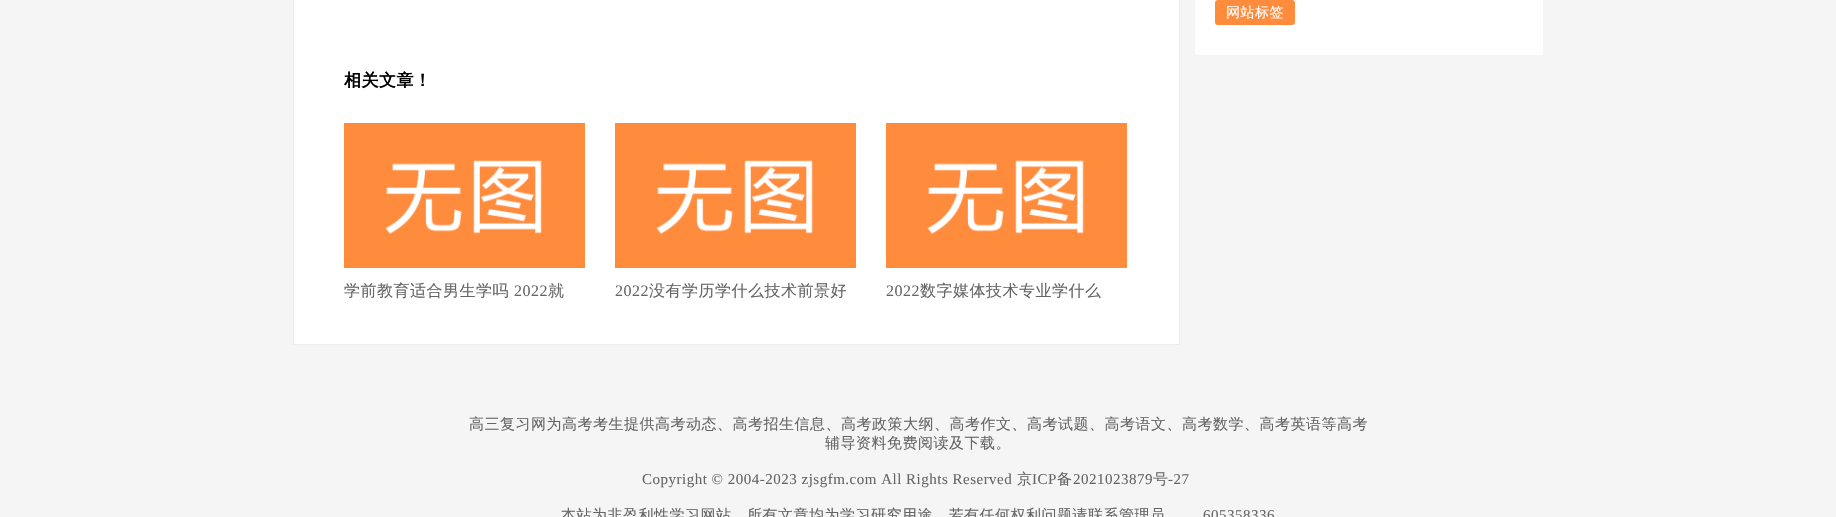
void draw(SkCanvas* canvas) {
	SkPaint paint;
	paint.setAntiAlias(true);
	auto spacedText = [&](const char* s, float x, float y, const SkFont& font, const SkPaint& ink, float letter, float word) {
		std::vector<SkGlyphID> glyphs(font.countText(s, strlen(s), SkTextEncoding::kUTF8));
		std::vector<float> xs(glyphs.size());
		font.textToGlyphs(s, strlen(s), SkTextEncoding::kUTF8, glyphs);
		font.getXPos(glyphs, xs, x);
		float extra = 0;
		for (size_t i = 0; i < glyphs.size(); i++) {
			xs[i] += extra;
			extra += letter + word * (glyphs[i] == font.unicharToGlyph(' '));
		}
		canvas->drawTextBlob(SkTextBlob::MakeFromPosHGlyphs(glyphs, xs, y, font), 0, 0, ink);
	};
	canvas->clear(0xfff5f5f5);
	paint.setColor(0xffffffff);
	canvas->drawRoundRect(SkRect::MakeXYWH(1195, -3, 348, 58), 3, 3, paint);
	paint.setColor(0xffff8b3d);
	canvas->drawRoundRect(SkRect::MakeXYWH(1215, 0, 80, 25), 3, 3, paint);
	SkFont f1(fontMgr->matchFamilyStyle("WenQuanYi Zen Hei", SkFontStyle(500, SkFontStyle::kNormal_Width, SkFontStyle::kUpright_Slant)), 14);
	f1.setSubpixel(true);
	paint.setColor(0xffffffff);
	spacedText("网站标签", 1226, 17, f1, paint, 0.5, 0);
	canvas->drawRect(SkRect::MakeXYWH(293.5, -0.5, 886, 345), paint);
	paint.setStroke(true);
	paint.setStrokeWidth(1);
	paint.setColor(0xffededed);
	canvas->drawRect(SkRect::MakeXYWH(293.5, -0.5, 886, 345), paint);
	SkFont f2(fontMgr->matchFamilyStyle("WenQuanYi Zen Hei", SkFontStyle::Bold()), 17);
	f2.setSubpixel(true);
	paint.setStroke(false);
	paint.setColor(0xff000000);
	spacedText("相关文章！", 344, 86, f2, paint, 0.5, 0);
	canvas->drawImageRect(SkImages::DeferredFromEncodedData(SkData::MakeFromFileName("img1.png")), SkRect::MakeXYWH(344, 123, 241, 145), SkSamplingOptions());
	SkFont f3(fontMgr->matchFamilyStyle("WenQuanYi Zen Hei", SkFontStyle(500, SkFontStyle::kNormal_Width, SkFontStyle::kUpright_Slant)), 16);
	f3.setSubpixel(true);
	paint.setColor(0xff656565);
	spacedText("学前教育适合男生学吗", 344, 296, f3, paint, 0.5, 0);
	SkFont f4(fontMgr->matchFamilyStyle("Liberation Serif", SkFontStyle::Normal()), 16);
	f4.setSubpixel(true);
	spacedText("2022", 514, 296, f4, paint, 0.5, 0);
	spacedText("就", 548, 296, f3, paint, 0.5, 0);
	canvas->drawImageRect(SkImages::DeferredFromEncodedData(SkData::MakeFromFileName("img1.png")), SkRect::MakeXYWH(615, 123, 241, 145), SkSamplingOptions());
	spacedText("2022", 615, 296, f4, paint, 0.5, 0);
	spacedText("没有学历学什么技术前景好", 649, 296, f3, paint, 0.5, 0);
	canvas->drawImageRect(SkImages::DeferredFromEncodedData(SkData::MakeFromFileName("img1.png")), SkRect::MakeXYWH(886, 123, 241, 145), SkSamplingOptions());
	spacedText("2022", 886, 296, f4, paint, 0.5, 0);
	spacedText("数字媒体技术专业学什么", 920, 296, f3, paint, 0.5, 0);
	SkFont f5(fontMgr->matchFamilyStyle("WenQuanYi Zen Hei", SkFontStyle(500, SkFontStyle::kNormal_Width, SkFontStyle::kUpright_Slant)), 15);
	f5.setSubpixel(true);
	spacedText("高三复习网为高考考生提供高考动态、高考招生信息、高考政策大纲、高考作文、高考试题、高考语文、高考数学、高考英语等高考", 469, 429, f5, paint, 0.5, 0);
	spacedText("辅导资料免费阅读及下载。", 825, 448, f5, paint, 0.5, 0);
	SkFont f6(fontMgr->matchFamilyStyle("Liberation Serif", SkFontStyle::Normal()), 15);
	f6.setSubpixel(true);
	spacedText("Copyright © 2004-2023 zjsgfm.com All Rights Reserved", 642, 484, f6, paint, 0.5, 0);
	spacedText("京", 1017, 484, f5, paint, 0.5, 0);
	spacedText("ICP", 1032, 484, f6, paint, 0.5, 0);
	spacedText("备", 1057, 484, f5, paint, 0.5, 0);
	spacedText("2021023879", 1073, 484, f6, paint, 0.5, 0);
	spacedText("号", 1153, 484, f5, paint, 0.5, 0);
	spacedText("-27", 1168, 484, f6, paint, 0.5, 0);
	spacedText("本站为非盈利性学习网站，所有文章均为学习研究用途，若有任何权利问题请联系管理员", 561, 520, f5, paint, 0.5, 0);
	spacedText("605358336", 1203, 520, f6, paint, 0.5, 0);
}
